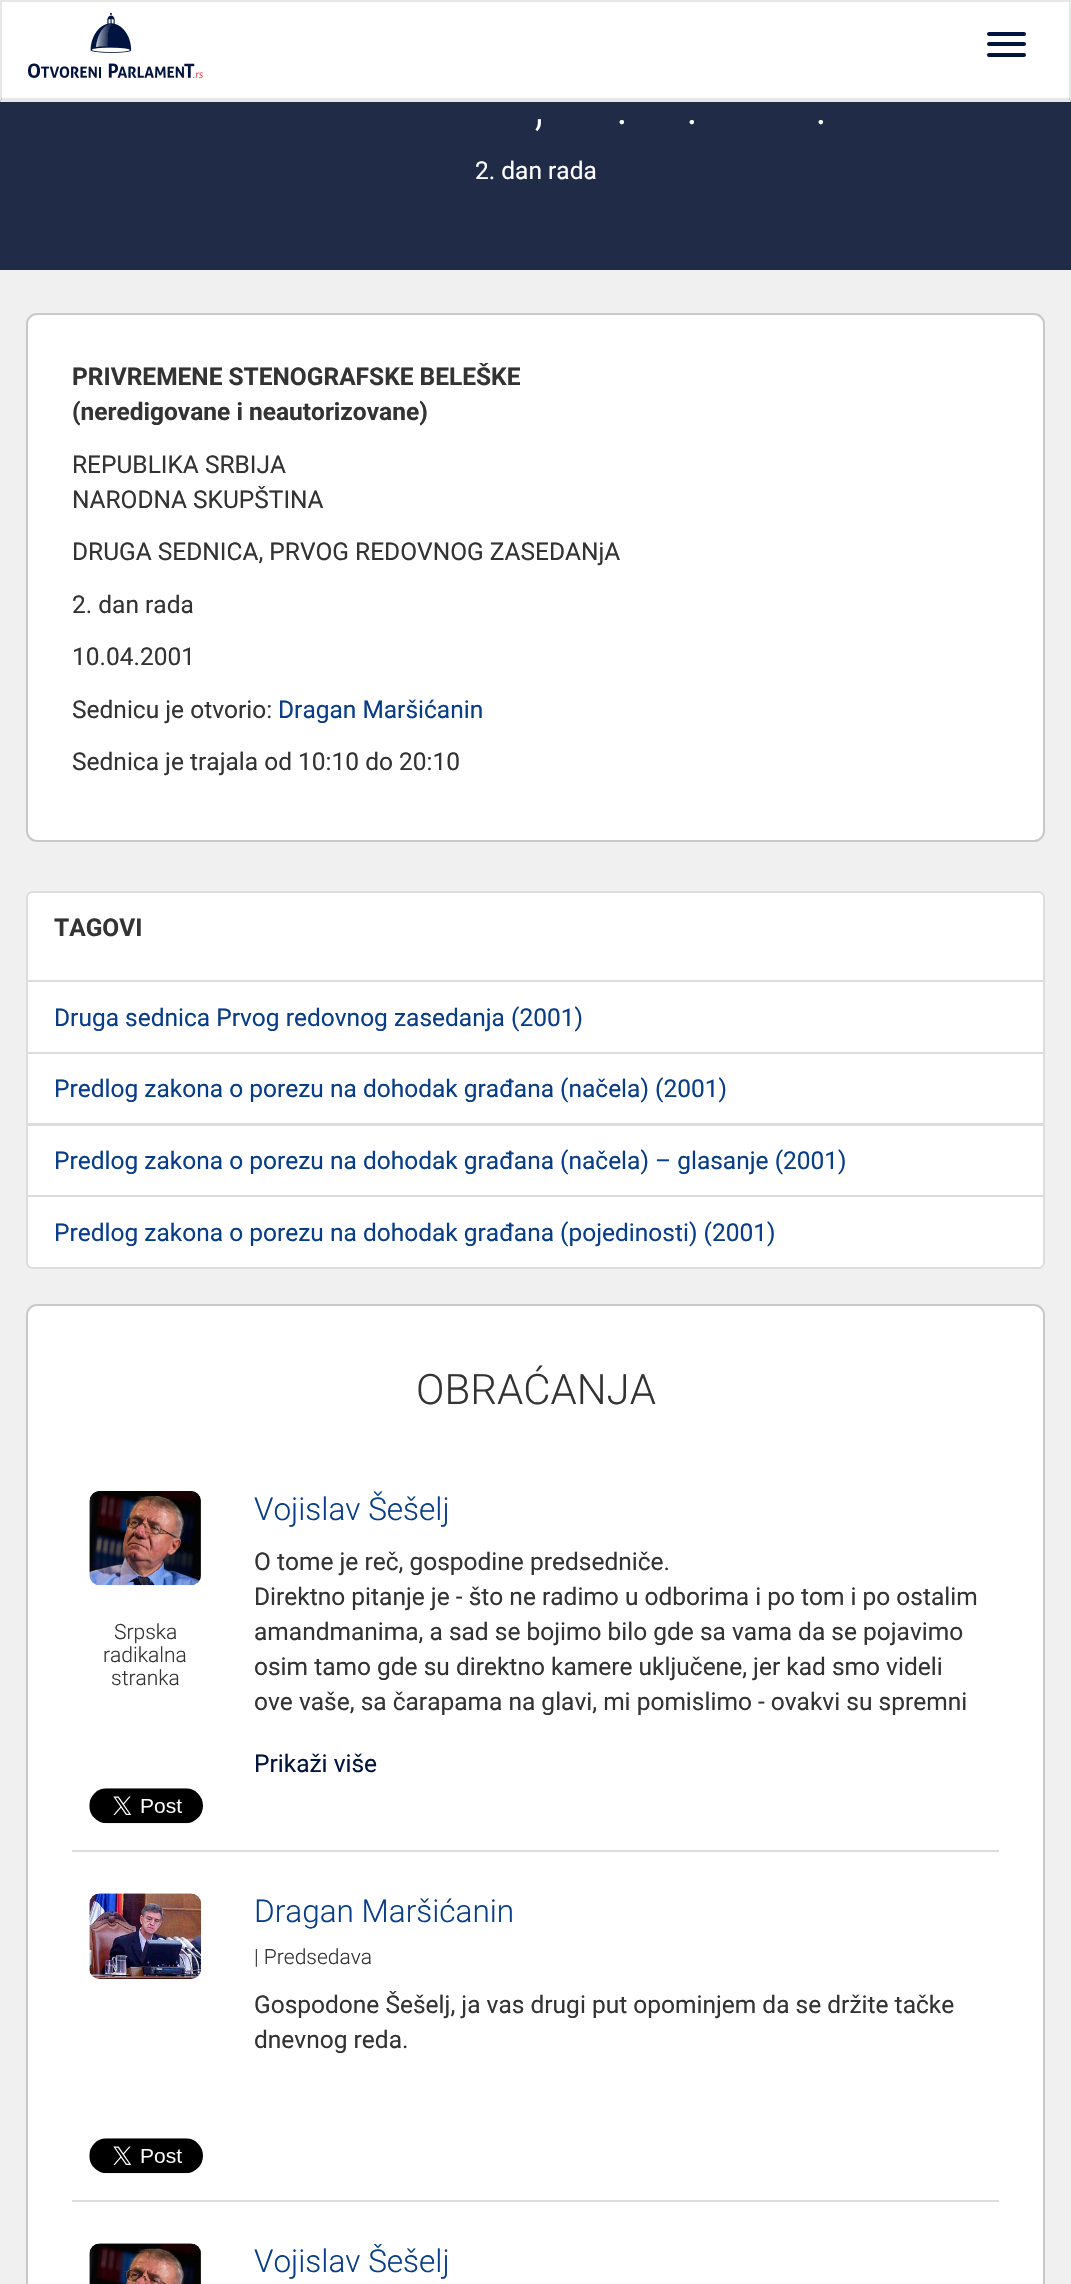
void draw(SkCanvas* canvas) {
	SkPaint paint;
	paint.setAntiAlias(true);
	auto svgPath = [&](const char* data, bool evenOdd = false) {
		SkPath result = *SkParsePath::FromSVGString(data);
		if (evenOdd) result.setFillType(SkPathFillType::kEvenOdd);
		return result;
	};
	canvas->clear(0xfff0f0f0);
	paint.setColor(0xffffffff);
	canvas->drawRect(SkRect::MakeXYWH(2, 2, 1067, 96), paint);
	paint.setColor(0xffe7e7e7);
	canvas->drawRect(SkRect::MakeXYWH(0, 0, 1071, 2), paint);
	paint.setColor(0xff202c47);
	canvas->drawRect(SkRect::MakeXYWH(0, 98, 1071, 172), paint);
	paint.setColor(0xffe7e7e7);
	canvas->drawPath(svgPath("M1071 0V102L1069 98V2Z"), paint);
	paint.setColor(0xffe6e6e6);
	canvas->drawPath(svgPath("M1071 102H0L2 98H1069Z"), paint);
	paint.setColor(0xffe7e7e7);
	canvas->drawPath(svgPath("M0 102V0L2 2V98Z"), paint);
	canvas->drawImageRect(SkImages::DeferredFromEncodedData(SkData::MakeFromFileName("img1.png")), SkRect::MakeXYWH(28, 12, 175, 67), SkSamplingOptions());
	paint.setColor(0xff00143f);
	canvas->drawRoundRect(SkRect::MakeXYWH(987, 32, 39, 4), 2, 2, paint);
	canvas->drawRoundRect(SkRect::MakeXYWH(987, 42, 39, 4), 2, 2, paint);
	canvas->drawRoundRect(SkRect::MakeXYWH(987, 53, 39, 4), 2, 2, paint);
	SkFont f1(fontMgr->matchFamilyStyle("Roboto", SkFontStyle(300, SkFontStyle::kNormal_Width, SkFontStyle::kUpright_Slant)), 52);
	f1.setSubpixel(true);
	paint.setColor(0xffffffff);
	canvas->drawString(",", 534, 124, f1, paint);
	canvas->drawString(".", 616, 124, f1, paint);
	canvas->drawString(".", 686, 124, f1, paint);
	canvas->drawString(".", 815, 124, f1, paint);
	SkFont f2(fontMgr->matchFamilyStyle("Roboto", SkFontStyle::Normal()), 24.5);
	f2.setSubpixel(true);
	canvas->drawString("2. dan rada", 475, 179, f2, paint);
	canvas->drawRoundRect(SkRect::MakeXYWH(27, 314, 1017, 527), 10, 10, paint);
	paint.setStroke(true);
	paint.setStrokeWidth(2);
	paint.setColor(0xffc8c8c8);
	canvas->drawRoundRect(SkRect::MakeXYWH(27, 314, 1017, 527), 10, 10, paint);
	SkFont f3(fontMgr->matchFamilyStyle("Roboto", SkFontStyle::Bold()), 24.5);
	f3.setSubpixel(true);
	paint.setStroke(false);
	paint.setColor(0xff333333);
	canvas->drawString("PRIVREMENE STENOGRAFSKE BELEŠKE", 72, 385, f3, paint);
	canvas->drawString("(neredigovane i neautorizovane)", 72, 420, f3, paint);
	canvas->drawString("REPUBLIKA SRBIJA", 72, 473, f2, paint);
	canvas->drawString("NARODNA SKUPŠTINA", 72, 508, f2, paint);
	canvas->drawString("DRUGA SEDNICA, PRVOG REDOVNOG ZASEDANjA", 72, 560, f2, paint);
	canvas->drawString("2. dan rada", 72, 613, f2, paint);
	canvas->drawString("10.04.2001", 72, 665, f2, paint);
	canvas->drawString("Sednicu je otvorio:", 72, 718, f2, paint);
	paint.setColor(0xff083d89);
	canvas->drawString("Dragan Maršićanin", 278, 718, f2, paint);
	paint.setColor(0xff333333);
	canvas->drawString("Sednica je trajala od 10:10 do 20:10", 72, 770, f2, paint);
	paint.setColor(0xffffffff);
	canvas->drawPath(svgPath("M33 892H1038C1041.5 892 1044 894.5 1044 898V981H27V898C27 894.5 29.5 892 33 892Z"), paint);
	paint.setStroke(true);
	paint.setColor(0xffdddddd);
	canvas->drawPath(svgPath("M33 892H1038C1041.5 892 1044 894.5 1044 898V981H27V898C27 894.5 29.5 892 33 892Z"), paint);
	paint.setStroke(false);
	paint.setColor(0xff333333);
	canvas->drawString("TAGOVI", 54, 936, f3, paint);
	paint.setColor(0xffffffff);
	canvas->drawRect(SkRect::MakeXYWH(27, 981, 1017, 72), paint);
	paint.setStroke(true);
	paint.setColor(0xffdddddd);
	canvas->drawRect(SkRect::MakeXYWH(27, 981, 1017, 72), paint);
	paint.setStroke(false);
	paint.setColor(0xff083d89);
	canvas->drawString("Druga sednica Prvog redovnog zasedanja (2001)", 54, 1026, f2, paint);
	paint.setColor(0xffffffff);
	canvas->drawRect(SkRect::MakeXYWH(27, 1053, 1017, 71), paint);
	paint.setStroke(true);
	paint.setColor(0xffdddddd);
	canvas->drawRect(SkRect::MakeXYWH(27, 1053, 1017, 71), paint);
	paint.setStroke(false);
	paint.setColor(0xff083d89);
	canvas->drawString("Predlog zakona o porezu na dohodak građana (načela) (2001)", 54, 1097, f2, paint);
	paint.setColor(0xffffffff);
	canvas->drawRect(SkRect::MakeXYWH(27, 1125, 1017, 71), paint);
	paint.setStroke(true);
	paint.setColor(0xffdddddd);
	canvas->drawRect(SkRect::MakeXYWH(27, 1125, 1017, 71), paint);
	paint.setStroke(false);
	paint.setColor(0xff083d89);
	canvas->drawString("Predlog zakona o porezu na dohodak građana (načela) – glasanje (2001)", 54, 1169, f2, paint);
	paint.setColor(0xffffffff);
	canvas->drawPath(svgPath("M27 1196H1044V1262C1044 1265.5 1041.5 1268 1038 1268H33C29.5 1268 27 1265.5 27 1262Z"), paint);
	paint.setStroke(true);
	paint.setColor(0xffdddddd);
	canvas->drawPath(svgPath("M27 1196H1044V1262C1044 1265.5 1041.5 1268 1038 1268H33C29.5 1268 27 1265.5 27 1262Z"), paint);
	paint.setStroke(false);
	paint.setColor(0xff083d89);
	canvas->drawString("Predlog zakona o porezu na dohodak građana (pojedinosti) (2001)", 54, 1241, f2, paint);
	paint.setColor(0xffffffff);
	canvas->drawRoundRect(SkRect::MakeXYWH(27, 1305, 1017, 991), 10, 10, paint);
	paint.setStroke(true);
	paint.setColor(0xffc8c8c8);
	canvas->drawRoundRect(SkRect::MakeXYWH(27, 1305, 1017, 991), 10, 10, paint);
	SkFont f4(fontMgr->matchFamilyStyle("Roboto", SkFontStyle(300, SkFontStyle::kNormal_Width, SkFontStyle::kUpright_Slant)), 42);
	f4.setSubpixel(true);
	paint.setStroke(false);
	paint.setColor(0xff333333);
	canvas->drawString("OBRAĆANJA", 416, 1404, f4, paint);
	paint.setColor(0xffdddddd);
	canvas->drawRect(SkRect::MakeXYWH(72, 1850, 927, 2), paint);
	canvas->drawImageRect(SkImages::DeferredFromEncodedData(SkData::MakeFromFileName("img2.png")), SkRect::MakeXYWH(89, 1491, 112, 95), SkSamplingOptions());
	SkFont f5(fontMgr->matchFamilyStyle("Roboto", SkFontStyle(300, SkFontStyle::kNormal_Width, SkFontStyle::kUpright_Slant)), 21);
	f5.setSubpixel(true);
	paint.setColor(0xff333333);
	canvas->drawString("Srpska", 114, 1639, f5, paint);
	canvas->drawString("radikalna", 103, 1662, f5, paint);
	canvas->drawString("stranka", 111, 1685, f5, paint);
	SkFont f6(fontMgr->matchFamilyStyle("Roboto", SkFontStyle(300, SkFontStyle::kNormal_Width, SkFontStyle::kUpright_Slant)), 31.5);
	f6.setSubpixel(true);
	paint.setColor(0xff083d89);
	canvas->drawString("Vojislav Šešelj", 254, 1520, f6, paint);
	paint.setColor(0xff333333);
	canvas->drawString("O tome je reč, gospodine predsedniče.", 254, 1570, f2, paint);
	canvas->drawString("Direktno pitanje je - što ne radimo u odborima i po tom i po ostalim", 254, 1605, f2, paint);
	canvas->drawString("amandmanima, a sad se bojimo bilo gde sa vama da se pojavimo", 254, 1640, f2, paint);
	canvas->drawString("osim tamo gde su direktno kamere uključene, jer kad smo videli", 254, 1675, f2, paint);
	canvas->drawString("ove vaše, sa čarapama na glavi, mi pomislimo - ovakvi su spremni", 254, 1710, f2, paint);
	paint.setColor(0xff00143f);
	canvas->drawString("Prikaži više", 254, 1772, f2, paint);
	canvas->drawImageRect(SkImages::DeferredFromEncodedData(SkData::MakeFromFileName("img3.png")), SkRect::MakeXYWH(89, 1788, 114, 36), SkSamplingOptions());
	paint.setColor(0xffdddddd);
	canvas->drawRect(SkRect::MakeXYWH(72, 2200, 927, 2), paint);
	canvas->drawImageRect(SkImages::DeferredFromEncodedData(SkData::MakeFromFileName("img4.png")), SkRect::MakeXYWH(89, 1893, 112, 86), SkSamplingOptions());
	paint.setColor(0xff083d89);
	canvas->drawString("Dragan Maršićanin", 254, 1922, f6, paint);
	paint.setColor(0xff333333);
	canvas->drawString("| Predsedava", 254, 1964, f5, paint);
	canvas->drawString("Gospodone Šešelj, ja vas drugi put opominjem da se držite tačke", 254, 2013, f2, paint);
	canvas->drawString("dnevnog reda.", 254, 2048, f2, paint);
	canvas->drawImageRect(SkImages::DeferredFromEncodedData(SkData::MakeFromFileName("img3.png")), SkRect::MakeXYWH(89, 2138, 114, 36), SkSamplingOptions());
	canvas->drawImageRect(SkImages::DeferredFromEncodedData(SkData::MakeFromFileName("img5.png")), SkRect::MakeXYWH(89, 2243, 112, 41), SkSamplingOptions());
	canvas->save();
	canvas->clipRect(SkRect::MakeXYWH(219, 2244, 763, 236));
	paint.setColor(0xff083d89);
	canvas->drawString("Vojislav Šešelj", 254, 2272, f6, paint);
	canvas->restore();
}
